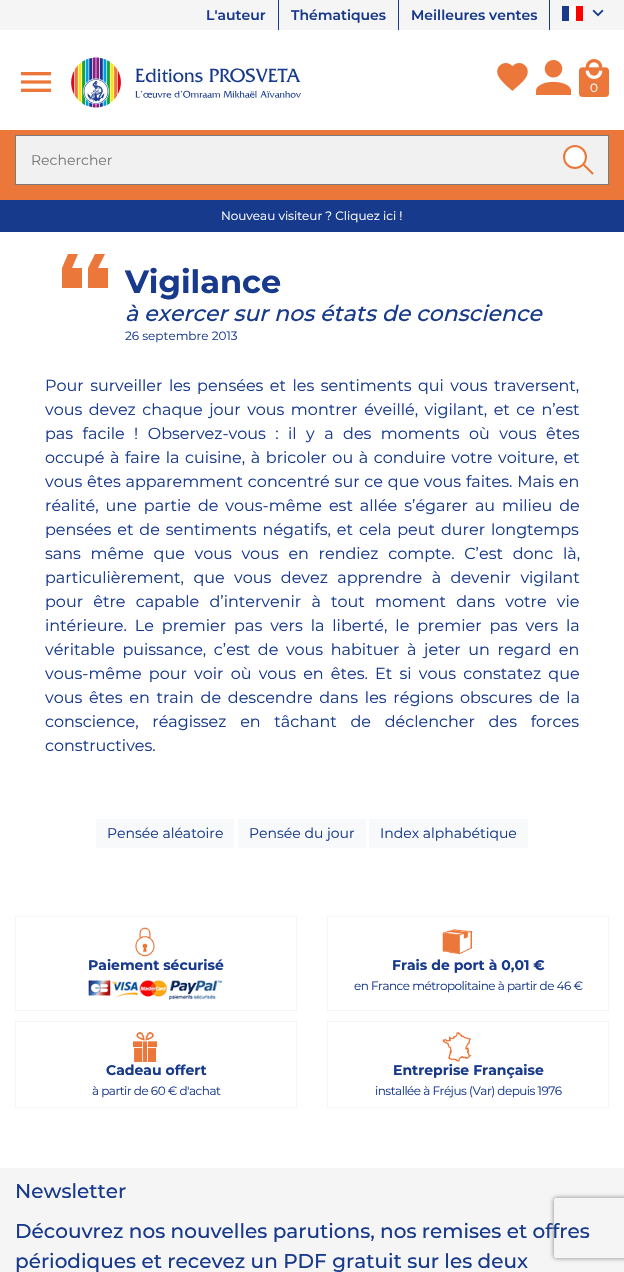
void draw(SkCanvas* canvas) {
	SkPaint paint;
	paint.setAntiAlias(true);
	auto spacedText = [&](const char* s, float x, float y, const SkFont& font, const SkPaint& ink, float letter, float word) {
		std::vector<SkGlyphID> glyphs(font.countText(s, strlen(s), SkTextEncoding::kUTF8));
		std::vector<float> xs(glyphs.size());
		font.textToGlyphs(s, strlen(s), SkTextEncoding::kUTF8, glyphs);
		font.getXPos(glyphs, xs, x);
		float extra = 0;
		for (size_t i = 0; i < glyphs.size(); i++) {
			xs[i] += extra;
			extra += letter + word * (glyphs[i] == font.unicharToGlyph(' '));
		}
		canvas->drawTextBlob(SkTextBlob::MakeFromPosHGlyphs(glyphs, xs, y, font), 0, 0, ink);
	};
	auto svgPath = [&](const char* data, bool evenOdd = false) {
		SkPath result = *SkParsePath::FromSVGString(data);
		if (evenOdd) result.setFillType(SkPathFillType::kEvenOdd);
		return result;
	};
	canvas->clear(0xffffffff);
	paint.setColor(0xfff5f5f5);
	canvas->drawRect(SkRect::MakeXYWH(0, 0, 624, 30), paint);
	SkFont f1(fontMgr->matchFamilyStyle("Montserrat", SkFontStyle(600, SkFontStyle::kNormal_Width, SkFontStyle::kUpright_Slant)), 14);
	f1.setSubpixel(true);
	paint.setColor(0xff183a8d);
	canvas->drawString("L'auteur", 206, 20, f1, paint);
	canvas->drawRect(SkRect::MakeXYWH(278, 0, 1, 30), paint);
	canvas->drawString("Thématiques", 291, 20, f1, paint);
	canvas->drawRect(SkRect::MakeXYWH(398, 0, 1, 30), paint);
	canvas->drawString("Meilleures ventes", 411, 20, f1, paint);
	canvas->drawRect(SkRect::MakeXYWH(549, 0, 1, 30), paint);
	canvas->drawImageRect(SkImages::DeferredFromEncodedData(SkData::MakeFromFileName("img1.png")), SkRect::MakeXYWH(562, 6, 21, 15), SkSamplingOptions());
	canvas->drawImageRect(SkImages::DeferredFromEncodedData(SkData::MakeFromFileName("img2.png")), SkRect::MakeXYWH(592, 9, 12, 8), SkSamplingOptions());
	canvas->drawImageRect(SkImages::DeferredFromEncodedData(SkData::MakeFromFileName("img3.png")), SkRect::MakeXYWH(21, 72, 30, 20), SkSamplingOptions());
	canvas->drawImageRect(SkImages::DeferredFromEncodedData(SkData::MakeFromFileName("img4.png")), SkRect::MakeXYWH(71, 57, 230, 51), SkSamplingOptions());
	paint.setColor(0xffeb773b);
	canvas->drawPath(svgPath("M512.5 91C507.5 86.5 501 81.5 498 75.5C494 66 505.5 58.5 512.5 66C519.5 58.5 531 66 527 75.5C524.5 81 519 85 514.5 89Z"), paint);
	canvas->drawImageRect(SkImages::DeferredFromEncodedData(SkData::MakeFromFileName("img5.png")), SkRect::MakeXYWH(536, 60, 35, 35), SkSamplingOptions());
	canvas->drawImageRect(SkImages::DeferredFromEncodedData(SkData::MakeFromFileName("img6.png")), SkRect::MakeXYWH(579, 59, 30, 38), SkSamplingOptions());
	SkFont f2(fontMgr->matchFamilyStyle("Montserrat", SkFontStyle::Normal()), 12);
	f2.setSubpixel(true);
	paint.setColor(0xffffffff);
	canvas->drawString("0", 590, 92, f2, paint);
	paint.setColor(0xffeb773b);
	canvas->drawRect(SkRect::MakeXYWH(0, 130, 624, 70), paint);
	paint.setColor(0xfff1f1f1);
	canvas->drawRect(SkRect::MakeXYWH(15.5, 135.5, 593, 49), paint);
	paint.setStroke(true);
	paint.setStrokeWidth(1);
	paint.setColor(0xff7b7b7b);
	canvas->drawRect(SkRect::MakeXYWH(15.5, 135.5, 593, 49), paint);
	SkFont f3(fontMgr->matchFamilyStyle("Montserrat", SkFontStyle::Normal()), 14);
	f3.setSubpixel(true);
	paint.setStroke(false);
	canvas->drawString("Rechercher", 31, 165, f3, paint);
	paint.setColor(0xffffffff);
	canvas->drawCircle(575, 157, 12, paint);
	paint.setStroke(true);
	paint.setStrokeWidth(2);
	paint.setColor(0xffeb773b);
	canvas->drawCircle(575, 157, 11, paint);
	paint.setStrokeCap(SkPaint::kRound_Cap);
	canvas->drawPath(svgPath("M584 165L592.5 173.5"), paint);
	paint.setStroke(false);
	paint.setColor(0xff183a8d);
	canvas->drawRect(SkRect::MakeXYWH(0, 200, 624, 32), paint);
	paint.setColor(0xffffffff);
	canvas->drawString("Nouveau visiteur ? Cliquez ici !", 221, 220, f2, paint);
	paint.setColor(0xffeb773b);
	canvas->drawPath(svgPath("M78 254L72 268H82V288H62V268L68 254ZM105 254L98 268H108V288H88V268L95 254Z"), paint);
	SkFont f4(fontMgr->matchFamilyStyle("Montserrat", SkFontStyle::Bold()), 32);
	f4.setSubpixel(true);
	paint.setColor(0xff183a8d);
	canvas->drawString("Vigilance", 125, 293, f4, paint);
	SkFont f5(fontMgr->matchFamilyStyle("Montserrat", SkFontStyle(500, SkFontStyle::kNormal_Width, SkFontStyle::kItalic_Slant)), 22);
	f5.setSubpixel(true);
	canvas->drawString("à exercer sur nos états de conscience", 125, 321, f5, paint);
	canvas->drawString("26 septembre 2013", 125, 340, f2, paint);
	SkFont f6(fontMgr->matchFamilyStyle("Montserrat", SkFontStyle::Normal()), 16);
	f6.setSubpixel(true);
	spacedText("Pour surveiller les pensées et les sentiments qui vous traversent,", 45, 391, f6, paint, 0, 2.25);
	spacedText("vous devez chaque jour vous montrer éveillé, vigilant, et ce n’est", 45, 415, f6, paint, 0, 2.25);
	spacedText("pas facile ! Observez-vous : il y a des moments où vous êtes", 45, 439, f6, paint, 0, 5.25);
	spacedText("occupé à faire la cuisine, à bricoler ou à conduire votre voiture, et", 45, 463, f6, paint, 0, 1.4);
	spacedText("vous êtes apparemment concentré sur ce que vous faites. Mais en", 45, 487, f6, paint, 0, 0.6);
	spacedText("réalité, une partie de vous-même est allée s’égarer au milieu de", 45, 511, f6, paint, 0, 2.75);
	spacedText("pensées et de sentiments négatifs, et cela peut durer longtemps", 45, 535, f6, paint, 0, 1.75);
	spacedText("sans même que vous vous en rendiez compte. C’est donc là,", 45, 559, f6, paint, 0, 5.5);
	spacedText("particulièrement, que vous devez apprendre à devenir vigilant", 45, 583, f6, paint, 0, 5.25);
	spacedText("pour être capable d’intervenir à tout moment dans votre vie", 45, 607, f6, paint, 0, 6);
	spacedText("intérieure. Le premier pas vers la liberté, le premier pas vers la", 45, 631, f6, paint, 0, 3.75);
	spacedText("véritable puissance, c’est de vous habituer à jeter un regard en", 45, 655, f6, paint, 0, 3.4);
	spacedText("vous-même pour voir où vous en êtes. Et si vous constatez que", 45, 679, f6, paint, 0, 3);
	spacedText("vous êtes en train de descendre dans les régions obscures de la", 45, 703, f6, paint, 0, 2.5);
	spacedText("conscience, réagissez en tâchant de déclencher des forces", 45, 727, f6, paint, 0, 9.5);
	canvas->drawString("constructives.", 45, 751, f6, paint);
	paint.setColor(0xfff8f9fa);
	canvas->drawRect(SkRect::MakeXYWH(96, 819, 138, 29), paint);
	paint.setColor(0xff183a8d);
	canvas->drawString("Pensée aléatoire", 107, 838, f3, paint);
	paint.setColor(0xfff8f9fa);
	canvas->drawRect(SkRect::MakeXYWH(238, 819, 128, 29), paint);
	paint.setColor(0xff183a8d);
	canvas->drawString("Pensée du jour", 249, 838, f3, paint);
	paint.setColor(0xfff8f9fa);
	canvas->drawRect(SkRect::MakeXYWH(369, 819, 159, 29), paint);
	paint.setColor(0xff183a8d);
	canvas->drawString("Index alphabétique", 380, 838, f3, paint);
	paint.setStroke(true);
	paint.setStrokeWidth(1);
	paint.setStrokeCap(SkPaint::kButt_Cap);
	paint.setColor(0xfff5f5f5);
	canvas->drawRect(SkRect::MakeXYWH(15.5, 916.5, 281, 94), paint);
	canvas->drawImageRect(SkImages::DeferredFromEncodedData(SkData::MakeFromFileName("img7.png")), SkRect::MakeXYWH(135, 927, 20, 30), SkSamplingOptions());
	SkFont f7(fontMgr->matchFamilyStyle("Montserrat", SkFontStyle::Bold()), 14);
	f7.setSubpixel(true);
	paint.setStroke(false);
	paint.setColor(0xff183a8d);
	canvas->drawString("Paiement sécurisé", 88, 970, f7, paint);
	canvas->drawImageRect(SkImages::DeferredFromEncodedData(SkData::MakeFromFileName("img8.png")), SkRect::MakeXYWH(88, 980, 135, 20), SkSamplingOptions());
	paint.setStroke(true);
	paint.setColor(0xfff5f5f5);
	canvas->drawRect(SkRect::MakeXYWH(327.5, 916.5, 281, 94), paint);
	canvas->drawImageRect(SkImages::DeferredFromEncodedData(SkData::MakeFromFileName("img9.png")), SkRect::MakeXYWH(442, 929, 30, 26), SkSamplingOptions());
	paint.setStroke(false);
	paint.setColor(0xff183a8d);
	canvas->drawString("Frais de port à 0,01 €", 392, 970, f7, paint);
	spacedText("en France métropolitaine à partir de 46 €", 354, 990, f2, paint, -0.5, 0);
	paint.setStroke(true);
	paint.setColor(0xfff5f5f5);
	canvas->drawRect(SkRect::MakeXYWH(15.5, 1021.5, 281, 86), paint);
	canvas->drawImageRect(SkImages::DeferredFromEncodedData(SkData::MakeFromFileName("img10.png")), SkRect::MakeXYWH(133, 1032, 24, 30), SkSamplingOptions());
	paint.setStroke(false);
	paint.setColor(0xff183a8d);
	canvas->drawString("Cadeau offert", 106, 1075, f7, paint);
	spacedText("à partir de 60 € d'achat", 92, 1095, f2, paint, -0.5, 0);
	paint.setStroke(true);
	paint.setColor(0xfff5f5f5);
	canvas->drawRect(SkRect::MakeXYWH(327.5, 1021.5, 281, 86), paint);
	canvas->drawImageRect(SkImages::DeferredFromEncodedData(SkData::MakeFromFileName("img11.png")), SkRect::MakeXYWH(442, 1032, 30, 30), SkSamplingOptions());
	paint.setStroke(false);
	paint.setColor(0xff183a8d);
	canvas->drawString("Entreprise Française", 393, 1075, f7, paint);
	spacedText("installée à Fréjus (Var) depuis 1976", 375, 1095, f2, paint, -0.5, 0);
	paint.setColor(0xfff5f5f5);
	canvas->drawRect(SkRect::MakeXYWH(0, 1168, 624, 104), paint);
	SkFont f8(fontMgr->matchFamilyStyle("Montserrat", SkFontStyle(500, SkFontStyle::kNormal_Width, SkFontStyle::kUpright_Slant)), 20);
	f8.setSubpixel(true);
	paint.setColor(0xff183a8d);
	canvas->drawString("Newsletter", 15, 1198, f8, paint);
	canvas->drawString("Découvrez nos nouvelles parutions, nos remises et offres", 15, 1238, f8, paint);
	canvas->drawString("périodiques et recevez un PDF gratuit sur les deux", 15, 1268, f8, paint);
	canvas->save();
	canvas->clipPath(svgPath("M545 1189H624V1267H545ZM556 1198H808C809 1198 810 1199 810 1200V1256C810 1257 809 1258 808 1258H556C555 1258 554 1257 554 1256V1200C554 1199 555 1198 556 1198Z", true), true);
	paint.setColor(0xff808080);
	paint.setMaskFilter(SkMaskFilter::MakeBlur(kNormal_SkBlurStyle, 2.5));
	canvas->drawRoundRect(SkRect::MakeXYWH(554, 1198, 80, 60), 2, 2, paint);
	paint.setMaskFilter(nullptr);
	canvas->restore();
}
